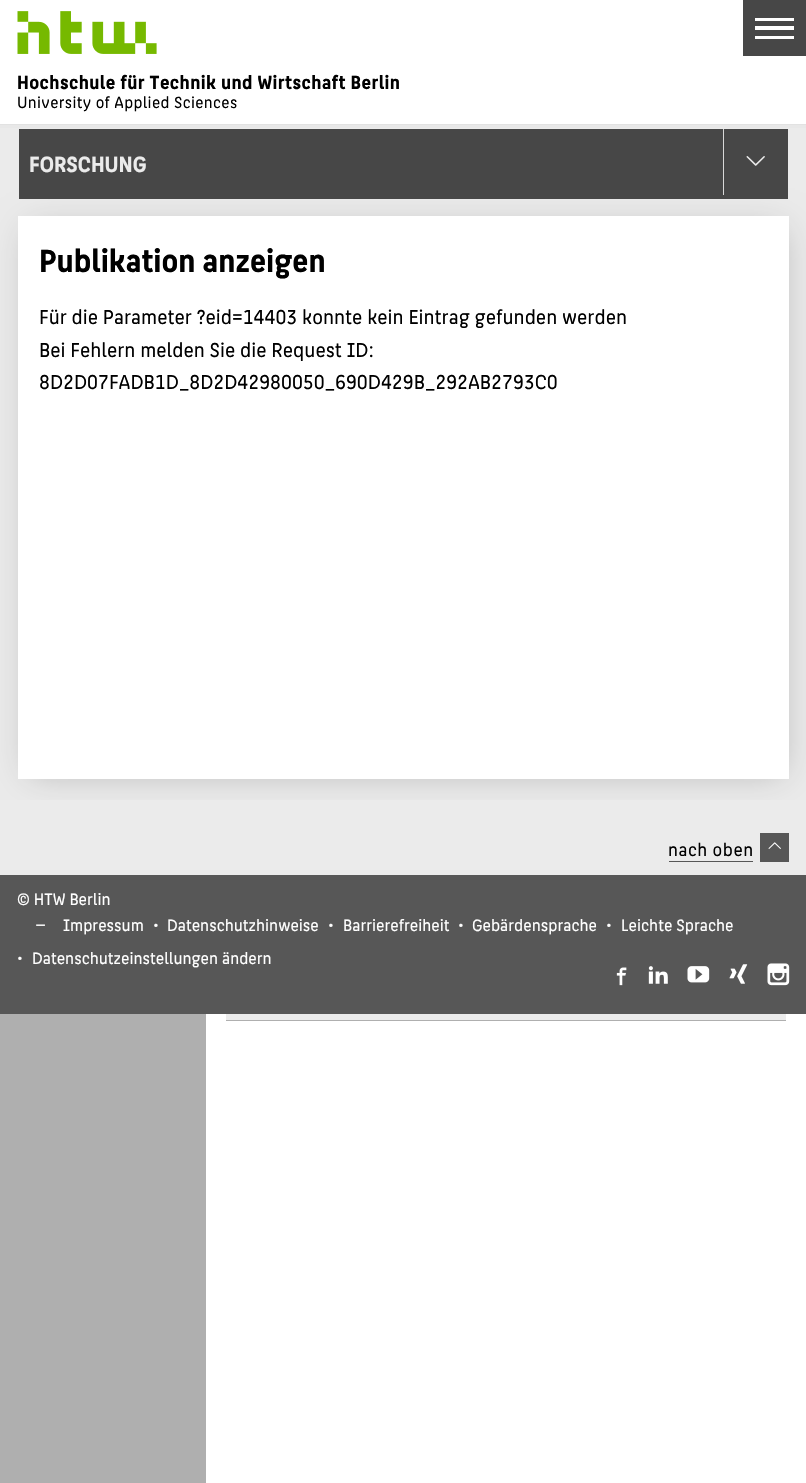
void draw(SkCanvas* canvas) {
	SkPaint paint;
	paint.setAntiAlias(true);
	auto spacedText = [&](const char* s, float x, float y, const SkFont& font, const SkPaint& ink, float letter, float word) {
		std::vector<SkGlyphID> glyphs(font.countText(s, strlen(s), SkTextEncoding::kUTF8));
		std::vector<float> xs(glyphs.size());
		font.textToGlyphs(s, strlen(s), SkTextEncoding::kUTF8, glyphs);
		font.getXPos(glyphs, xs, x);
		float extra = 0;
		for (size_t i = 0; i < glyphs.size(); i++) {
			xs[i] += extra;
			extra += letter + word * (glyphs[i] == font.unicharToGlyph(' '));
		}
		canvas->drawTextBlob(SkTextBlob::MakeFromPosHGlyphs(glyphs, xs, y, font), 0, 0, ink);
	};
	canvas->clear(0xffafafaf);
	paint.setColor(0xffffffff);
	canvas->drawRect(SkRect::MakeXYWH(0, 0, 806, 124), paint);
	paint.setColor(0xff474747);
	canvas->drawRect(SkRect::MakeXYWH(743, 0, 63, 56), paint);
	paint.setColor(0xffffffff);
	canvas->drawRect(SkRect::MakeXYWH(755, 26, 39, 4), paint);
	canvas->drawRect(SkRect::MakeXYWH(755, 18, 39, 3), paint);
	canvas->drawRect(SkRect::MakeXYWH(755, 36, 39, 3), paint);
	canvas->drawImageRect(SkImages::DeferredFromEncodedData(SkData::MakeFromFileName("img1.png")), SkRect::MakeXYWH(17, 11, 140, 43), SkSamplingOptions());
	SkFont f1(fontMgr->matchFamilyStyle("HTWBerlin", SkFontStyle::Bold()), 20.3);
	f1.setSubpixel(true);
	paint.setColor(0xff000000);
	spacedText("Hochschule für Technik und Wirtschaft Berlin", 17, 89, f1, paint, 0.4, 0);
	SkFont f2(fontMgr->matchFamilyStyle("HTWBerlin", SkFontStyle::Normal()), 17.1);
	f2.setSubpixel(true);
	spacedText("University of Applied Sciences", 17, 108, f2, paint, 0.35, 0);
	paint.setColor(0xffebebeb);
	canvas->drawRect(SkRect::MakeXYWH(0, 128, 806, 672), paint);
	paint.setColor(0xffe2e2e2);
	canvas->drawRect(SkRect::MakeXYWH(0, 124, 806, 1), paint);
	paint.setColor(0xffe8e8e8);
	canvas->drawRect(SkRect::MakeXYWH(0, 125, 806, 3), paint);
	paint.setColor(0x38000000);
	paint.setMaskFilter(SkMaskFilter::MakeBlur(kNormal_SkBlurStyle, 17));
	canvas->drawRect(SkRect::MakeXYWH(29, 229, 754, 545), paint);
	paint.setMaskFilter(nullptr);
	paint.setColor(0xff474747);
	canvas->drawRect(SkRect::MakeXYWH(19, 129, 769, 70), paint);
	SkFont f3(fontMgr->matchFamilyStyle("HTWBerlin", SkFontStyle::Bold()), 23.5);
	f3.setSubpixel(true);
	paint.setColor(0xffebebeb);
	canvas->drawString("FORSCHUNG", 29, 172, f3, paint);
	paint.setColor(0xffd8d8d8);
	canvas->drawRect(SkRect::MakeXYWH(723, 129, 1, 66), paint);
	canvas->drawImageRect(SkImages::DeferredFromEncodedData(SkData::MakeFromFileName("img2.png")), SkRect::MakeXYWH(746, 156, 19, 10), SkSamplingOptions());
	paint.setColor(0xffffffff);
	canvas->drawRect(SkRect::MakeXYWH(18, 216, 771, 563), paint);
	SkFont f4(fontMgr->matchFamilyStyle("HTWBerlin", SkFontStyle::Bold()), 34.25);
	f4.setSubpixel(true);
	paint.setColor(0xff000000);
	canvas->drawString("Publikation anzeigen", 39, 272, f4, paint);
	SkFont f5(fontMgr->matchFamilyStyle("HTWBerlin", SkFontStyle::Normal()), 21.4);
	f5.setSubpixel(true);
	canvas->drawString("Für die Parameter ?eid=14403 konnte kein Eintrag gefunden werden", 39, 324, f5, paint);
	canvas->drawString("Bei Fehlern melden Sie die Request ID:", 39, 357, f5, paint);
	canvas->drawString("8D2D07FADB1D_8D2D42980050_690D429B_292AB2793C0", 39, 389, f5, paint);
	paint.setColor(0xffebebeb);
	canvas->drawRect(SkRect::MakeXYWH(0, 800, 806, 75), paint);
	paint.setColor(0xff575757);
	canvas->drawRect(SkRect::MakeXYWH(669, 861, 84, 1), paint);
	canvas->drawRect(SkRect::MakeXYWH(760, 833, 29, 29), paint);
	SkFont f6(fontMgr->matchFamilyStyle("HTWBerlin", SkFontStyle::Normal()), 19.25);
	f6.setSubpixel(true);
	paint.setColor(0xff000000);
	spacedText("nach oben", 668, 856, f6, paint, 0.5, 0);
	canvas->drawImageRect(SkImages::DeferredFromEncodedData(SkData::MakeFromFileName("img3.png")), SkRect::MakeXYWH(768, 842, 13, 7), SkSamplingOptions());
	paint.setColor(0xff575757);
	canvas->drawRect(SkRect::MakeXYWH(0, 875, 806, 139), paint);
	SkFont f7(fontMgr->matchFamilyStyle("HTWBerlin", SkFontStyle::Normal()), 17.5);
	f7.setSubpixel(true);
	paint.setColor(0xffffffff);
	canvas->drawString("© HTW Berlin", 17, 905, f7, paint);
	canvas->drawString("—", 35, 931, f7, paint);
	canvas->drawString("Impressum", 63, 931, f7, paint);
	canvas->drawString("∙", 153, 931, f7, paint);
	canvas->drawString("Datenschutzhinweise", 167, 931, f7, paint);
	canvas->drawString("∙", 328, 931, f7, paint);
	canvas->drawString("Barrierefreiheit", 343, 931, f7, paint);
	canvas->drawString("∙", 458, 931, f7, paint);
	canvas->drawString("Gebärdensprache", 472, 931, f7, paint);
	canvas->drawString("∙", 606, 931, f7, paint);
	canvas->drawString("Leichte Sprache", 621, 931, f7, paint);
	canvas->drawString("∙", 17, 964, f7, paint);
	canvas->drawString("Datenschutzeinstellungen ändern", 32, 964, f7, paint);
	canvas->drawImageRect(SkImages::DeferredFromEncodedData(SkData::MakeFromFileName("img4.png")), SkRect::MakeXYWH(616, 967, 11, 19), SkSamplingOptions());
	canvas->drawImageRect(SkImages::DeferredFromEncodedData(SkData::MakeFromFileName("img5.png")), SkRect::MakeXYWH(648, 966, 20, 18), SkSamplingOptions());
	canvas->drawImageRect(SkImages::DeferredFromEncodedData(SkData::MakeFromFileName("img6.png")), SkRect::MakeXYWH(687, 966, 23, 17), SkSamplingOptions());
	canvas->drawImageRect(SkImages::DeferredFromEncodedData(SkData::MakeFromFileName("img7.png")), SkRect::MakeXYWH(729, 964, 19, 20), SkSamplingOptions());
	canvas->drawImageRect(SkImages::DeferredFromEncodedData(SkData::MakeFromFileName("img8.png")), SkRect::MakeXYWH(767, 963, 23, 23), SkSamplingOptions());
	canvas->drawRect(SkRect::MakeXYWH(206, 1014, 600, 469), paint);
	paint.setColor(0xffebebeb);
	canvas->drawRect(SkRect::MakeXYWH(226, 1014, 560, 6), paint);
	paint.setColor(0xffafafaf);
	canvas->drawRect(SkRect::MakeXYWH(226, 1020, 560, 1), paint);
}
